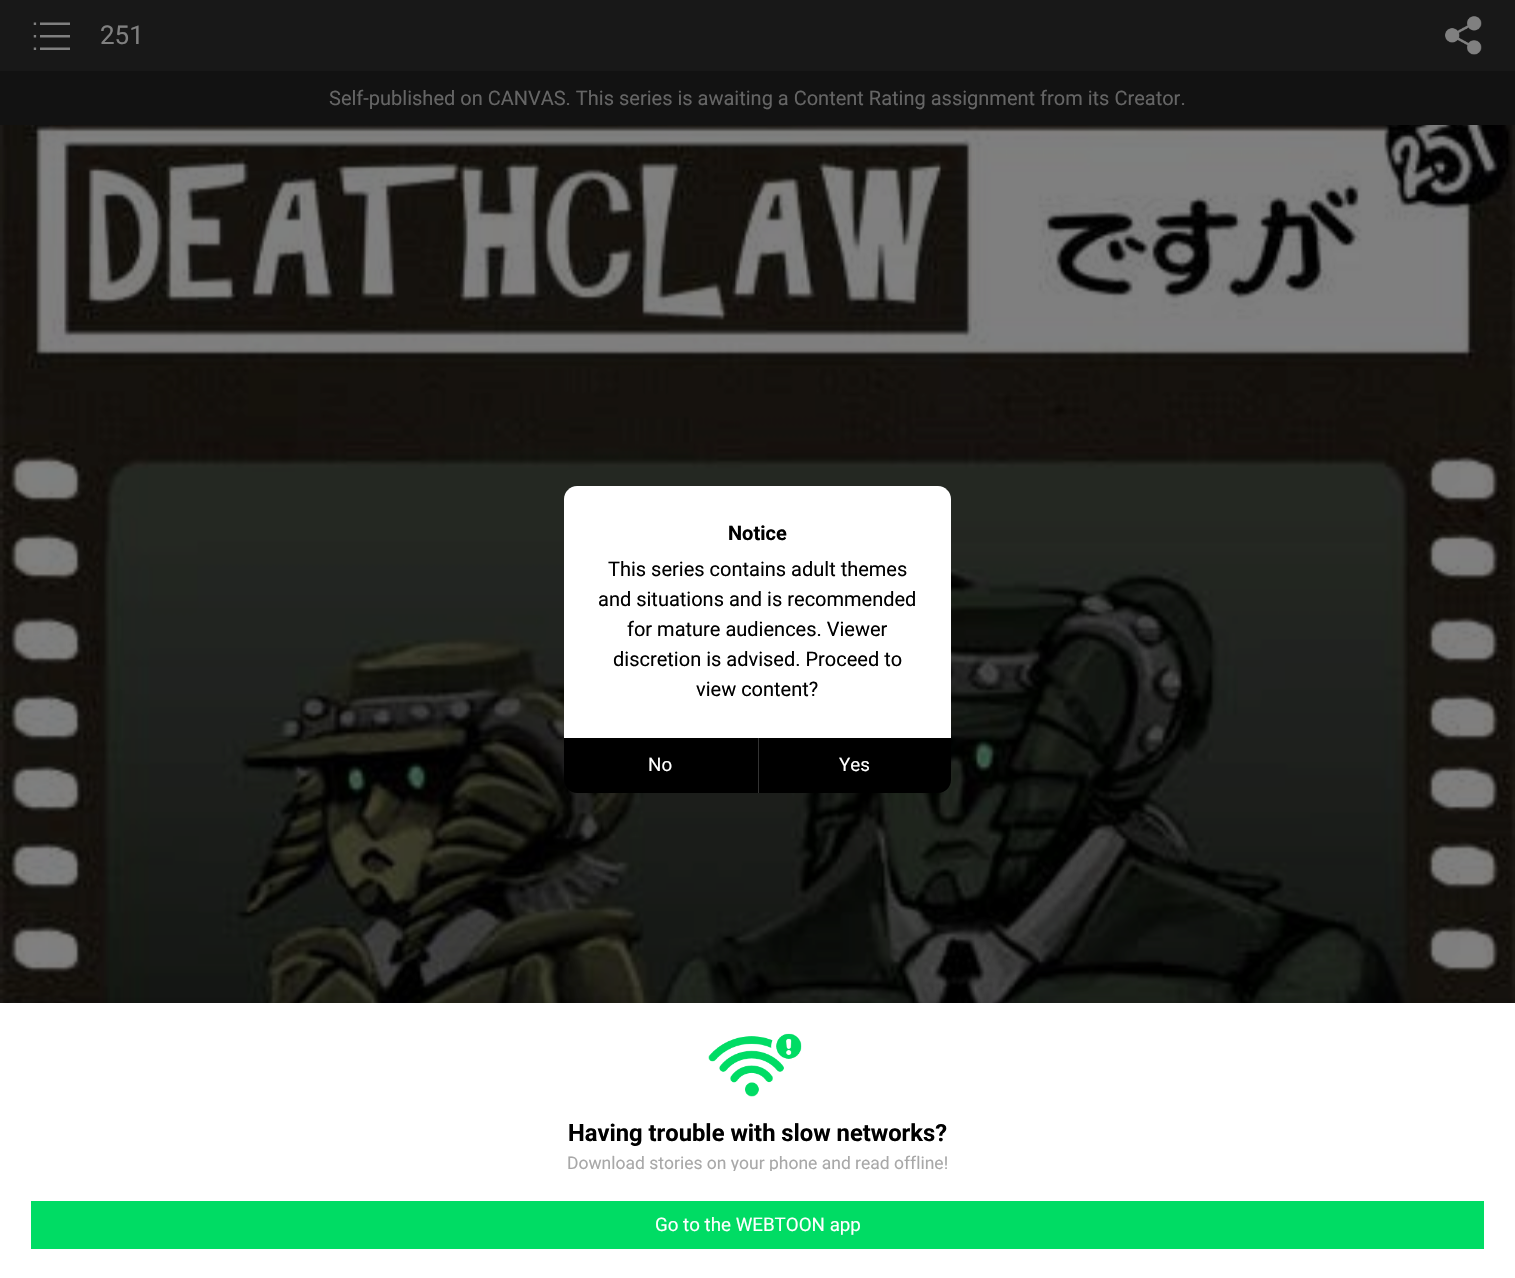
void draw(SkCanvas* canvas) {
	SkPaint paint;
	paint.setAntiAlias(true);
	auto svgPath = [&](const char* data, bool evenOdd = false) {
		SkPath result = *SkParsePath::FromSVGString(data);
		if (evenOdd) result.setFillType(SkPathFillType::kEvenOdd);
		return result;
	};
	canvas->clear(0xffffffff);
	paint.setColor(0xff181818);
	canvas->drawRect(SkRect::MakeXYWH(0, 0, 1515, 71), paint);
	canvas->drawImageRect(SkImages::DeferredFromEncodedData(SkData::MakeFromFileName("img1.png")), SkRect::MakeXYWH(33, 22, 37, 28), SkSamplingOptions());
	SkFont f1(fontMgr->matchFamilyStyle("Roboto", SkFontStyle::Normal()), 26);
	f1.setSubpixel(true);
	paint.setColor(0xff808080);
	canvas->drawString("251", 100, 44, f1, paint);
	canvas->drawImageRect(SkImages::DeferredFromEncodedData(SkData::MakeFromFileName("img2.png")), SkRect::MakeXYWH(1445, 16, 37, 39), SkSamplingOptions());
	paint.setColor(0xff121212);
	canvas->drawRect(SkRect::MakeXYWH(0, 71, 1515, 54), paint);
	SkFont f2(fontMgr->matchFamilyStyle("Roboto", SkFontStyle::Normal()), 20);
	f2.setSubpixel(true);
	paint.setColor(0xff656565);
	canvas->drawString("Self-published on CANVAS. This series is awaiting a Content Rating assignment from its Creator.", 329, 105, f2, paint);
	canvas->drawImageRect(SkImages::DeferredFromEncodedData(SkData::MakeFromFileName("img3.png")), SkRect::MakeXYWH(0, 125, 1515, 878), SkSamplingOptions());
	paint.setColor(0xffffffff);
	canvas->drawPath(svgPath("M577 486H938C945 486 951 492 951 499V738H564V499C564 492 570 486 577 486Z"), paint);
	SkFont f3(fontMgr->matchFamilyStyle("Roboto", SkFontStyle::Bold()), 20);
	f3.setSubpixel(true);
	paint.setColor(0xff000000);
	canvas->drawString("Notice", 728, 540, f3, paint);
	canvas->drawString("This series contains adult themes", 608, 576, f2, paint);
	canvas->drawString("and situations and is recommended", 598, 606, f2, paint);
	canvas->drawString("for mature audiences. Viewer", 627, 636, f2, paint);
	canvas->drawString("discretion is advised. Proceed to", 613, 666, f2, paint);
	canvas->drawString("view content?", 696, 696, f2, paint);
	canvas->drawPath(svgPath("M564 738H951V780C951 787 945 793 938 793H577C570 793 564 787 564 780Z"), paint);
	SkFont f4(fontMgr->matchFamilyStyle("Roboto", SkFontStyle::Normal()), 18.75);
	f4.setSubpixel(true);
	paint.setColor(0xffffffff);
	canvas->drawString("No", 648, 771, f4, paint);
	paint.setColor(0xff333333);
	canvas->drawRect(SkRect::MakeXYWH(758, 738, 1, 55), paint);
	paint.setColor(0xffffffff);
	canvas->drawString("Yes", 839, 771, f4, paint);
	paint.setColor(0x33000000);
	paint.setMaskFilter(SkMaskFilter::MakeBlur(kNormal_SkBlurStyle, 6));
	canvas->drawRect(SkRect::MakeXYWH(0, 1005, 1515, 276), paint);
	paint.setMaskFilter(nullptr);
	paint.setColor(0xffffffff);
	canvas->drawRect(SkRect::MakeXYWH(0, 1003, 1515, 275), paint);
	canvas->drawImageRect(SkImages::DeferredFromEncodedData(SkData::MakeFromFileName("img4.png")), SkRect::MakeXYWH(708, 1033, 94, 64), SkSamplingOptions());
	SkFont f5(fontMgr->matchFamilyStyle("Roboto", SkFontStyle::Bold()), 23.75);
	f5.setSubpixel(true);
	paint.setColor(0xff000000);
	canvas->drawString("Having trouble with slow networks?", 568, 1141, f5, paint);
	canvas->save();
	canvas->clipRect(SkRect::MakeXYWH(31, 1154, 1453, 17));
	SkFont f6(fontMgr->matchFamilyStyle("Roboto", SkFontStyle::Normal()), 17.5);
	f6.setSubpixel(true);
	paint.setColor(0xffa8a8a8);
	canvas->drawString("Download stories on your phone and read offline!", 567, 1169, f6, paint);
	canvas->restore();
	paint.setColor(0xff00dc64);
	canvas->drawRect(SkRect::MakeXYWH(31, 1201, 1453, 48), paint);
	paint.setColor(0xffffffff);
	canvas->drawString("Go to the WEBTOON app", 655, 1231, f4, paint);
}
